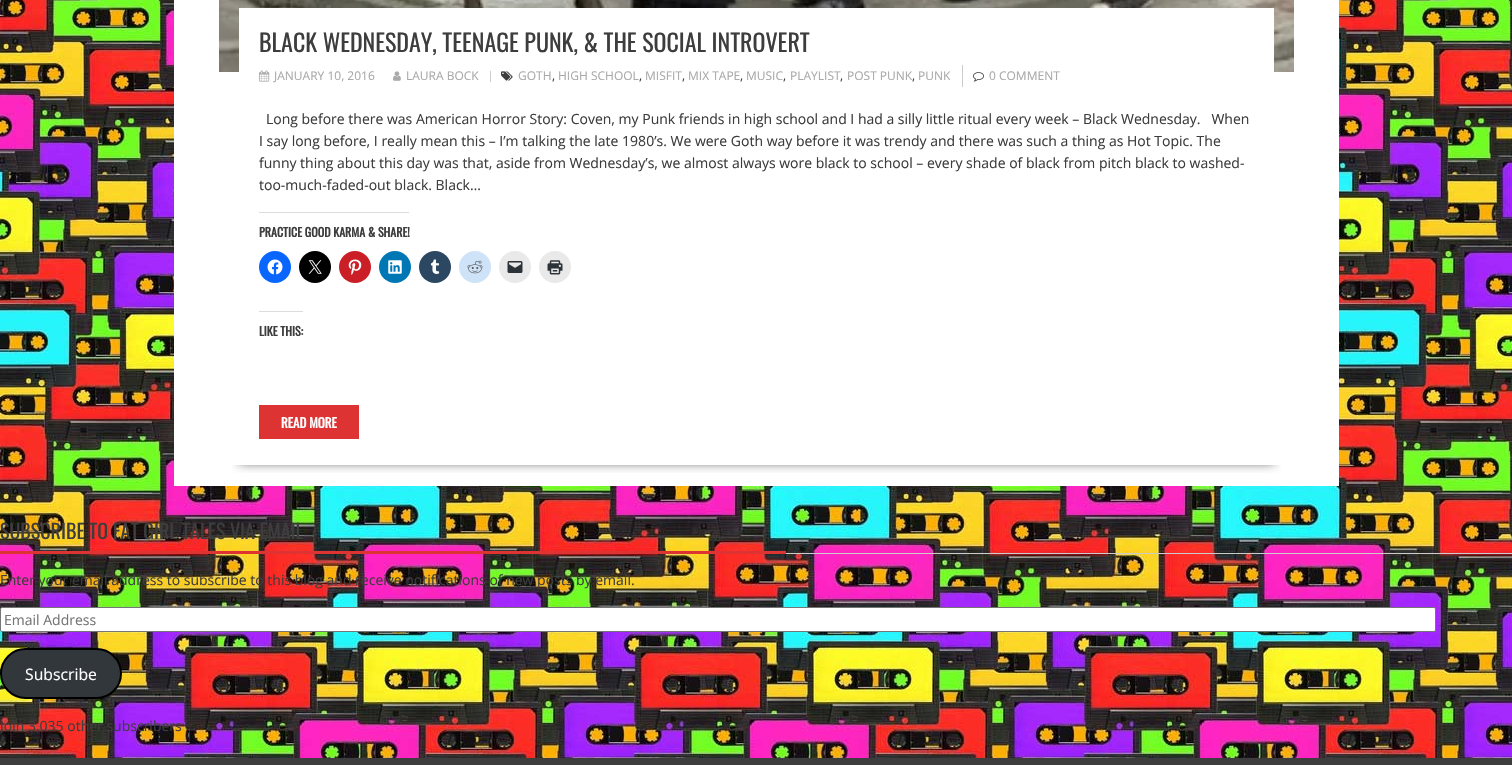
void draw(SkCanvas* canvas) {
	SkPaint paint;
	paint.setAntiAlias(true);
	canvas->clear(0xffffffff);
	canvas->drawImageRect(SkImages::DeferredFromEncodedData(SkData::MakeFromFileName("img1.png")), SkRect::MakeXYWH(0, 0, 1512, 758), SkSamplingOptions());
	paint.setColor(0xffffffff);
	canvas->drawRect(SkRect::MakeXYWH(174, 0, 1165, 486), paint);
	canvas->save();
	canvas->clipRect(SkRect::MakeXYWH(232, 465, 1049, 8));
	paint.setColor(0xbf000000);
	paint.setMaskFilter(SkMaskFilter::MakeBlur(kNormal_SkBlurStyle, 5.5));
	canvas->drawRect(SkRect::MakeXYWH(239, -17, 1035, 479), paint);
	paint.setMaskFilter(nullptr);
	canvas->restore();
	canvas->drawImageRect(SkImages::DeferredFromEncodedData(SkData::MakeFromFileName("img2.png")), SkRect::MakeXYWH(219, 0, 1075, 72), SkSamplingOptions());
	paint.setColor(0xffffffff);
	canvas->drawRect(SkRect::MakeXYWH(239, 8, 1035, 64), paint);
	SkFont f1(fontMgr->matchFamilyStyle("Oswald", SkFontStyle::Normal()), 24);
	f1.setSubpixel(true);
	paint.setColor(0xff3d3d3d);
	canvas->drawString("BLACK WEDNESDAY, TEENAGE PUNK, & THE SOCIAL INTROVERT", 259, 52, f1, paint);
	canvas->drawImageRect(SkImages::DeferredFromEncodedData(SkData::MakeFromFileName("img3.png")), SkRect::MakeXYWH(259, 70, 11, 12), SkSamplingOptions());
	SkFont f2(fontMgr->matchFamilyStyle("Open Sans", SkFontStyle::Normal()), 12);
	f2.setSubpixel(true);
	paint.setColor(0xffaaaaaa);
	canvas->drawString("JANUARY 10, 2016", 274, 80, f2, paint);
	canvas->drawImageRect(SkImages::DeferredFromEncodedData(SkData::MakeFromFileName("img4.png")), SkRect::MakeXYWH(393, 71, 8, 10), SkSamplingOptions());
	canvas->drawString("LAURA BOCK", 406, 80, f2, paint);
	paint.setColor(0xffcccccc);
	canvas->drawRect(SkRect::MakeXYWH(490, 71, 1, 11), paint);
	canvas->drawImageRect(SkImages::DeferredFromEncodedData(SkData::MakeFromFileName("img5.png")), SkRect::MakeXYWH(501, 71, 12, 10), SkSamplingOptions());
	paint.setColor(0xffaaaaaa);
	canvas->drawString("GOTH", 518, 80, f2, paint);
	paint.setColor(0xff3d3d3d);
	canvas->drawString(",", 552, 80, f2, paint);
	paint.setColor(0xffaaaaaa);
	canvas->drawString("HIGH SCHOOL", 558, 80, f2, paint);
	paint.setColor(0xff3d3d3d);
	canvas->drawString(",", 639, 80, f2, paint);
	paint.setColor(0xffaaaaaa);
	canvas->drawString("MISFIT", 645, 80, f2, paint);
	paint.setColor(0xff3d3d3d);
	canvas->drawString(",", 682, 80, f2, paint);
	paint.setColor(0xffaaaaaa);
	canvas->drawString("MIX TAPE", 688, 80, f2, paint);
	paint.setColor(0xff3d3d3d);
	canvas->drawString(",", 740, 80, f2, paint);
	paint.setColor(0xffaaaaaa);
	canvas->drawString("MUSIC", 746, 80, f2, paint);
	paint.setColor(0xff3d3d3d);
	canvas->drawString(",", 783, 80, f2, paint);
	paint.setColor(0xffaaaaaa);
	canvas->drawString("PLAYLIST", 790, 80, f2, paint);
	paint.setColor(0xff3d3d3d);
	canvas->drawString(",", 840, 80, f2, paint);
	paint.setColor(0xffaaaaaa);
	canvas->drawString("POST PUNK", 847, 80, f2, paint);
	paint.setColor(0xff3d3d3d);
	canvas->drawString(",", 912, 80, f2, paint);
	paint.setColor(0xffaaaaaa);
	canvas->drawString("PUNK", 918, 80, f2, paint);
	paint.setColor(0xffcccccc);
	canvas->drawRect(SkRect::MakeXYWH(962, 65, 1, 22), paint);
	canvas->drawImageRect(SkImages::DeferredFromEncodedData(SkData::MakeFromFileName("img6.png")), SkRect::MakeXYWH(973, 72, 11, 10), SkSamplingOptions());
	paint.setColor(0xffaaaaaa);
	canvas->drawString("0 COMMENT", 989, 80, f2, paint);
	SkFont f3(fontMgr->matchFamilyStyle("Open Sans", SkFontStyle::Normal()), 14);
	f3.setSubpixel(true);
	paint.setColor(0xff3d3d3d);
	canvas->drawString("Long before there was American Horror Story: Coven, my Punk friends in high school and I had a silly little ritual every week – Black Wednesday.   When", 266, 124, f3, paint);
	canvas->drawString("I say long before, I really mean this – I’m talking the late 1980’s. We were Goth way before it was trendy and there was such a thing as Hot Topic. The", 259, 146, f3, paint);
	canvas->drawString("funny thing about this day was that, aside from Wednesday’s, we almost always wore black to school – every shade of black from pitch black to washed-", 259, 168, f3, paint);
	canvas->drawString("too-much-faded-out black. Black…", 259, 190, f3, paint);
	paint.setColor(0xffdcdcde);
	canvas->drawRect(SkRect::MakeXYWH(259, 212, 150, 1), paint);
	SkFont f4(fontMgr->matchFamilyStyle("Oswald", SkFontStyle::Bold()), 12);
	f4.setSubpixel(true);
	paint.setColor(0xff3d3d3d);
	canvas->drawString("PRACTICE GOOD KARMA & SHARE!", 259, 237, f4, paint);
	paint.setColor(0xff0866ff);
	canvas->drawCircle(275, 267, 16, paint);
	canvas->drawImageRect(SkImages::DeferredFromEncodedData(SkData::MakeFromFileName("img7.png")), SkRect::MakeXYWH(267, 259, 16, 16), SkSamplingOptions());
	paint.setColor(0xff000000);
	canvas->drawCircle(315, 267, 16, paint);
	canvas->drawImageRect(SkImages::DeferredFromEncodedData(SkData::MakeFromFileName("img8.png")), SkRect::MakeXYWH(308, 260, 14, 14), SkSamplingOptions());
	paint.setColor(0xffca1f27);
	canvas->drawCircle(355, 267, 16, paint);
	canvas->drawImageRect(SkImages::DeferredFromEncodedData(SkData::MakeFromFileName("img9.png")), SkRect::MakeXYWH(348, 259, 14, 16), SkSamplingOptions());
	paint.setColor(0xff0077b5);
	canvas->drawCircle(395, 267, 16, paint);
	canvas->drawImageRect(SkImages::DeferredFromEncodedData(SkData::MakeFromFileName("img10.png")), SkRect::MakeXYWH(388, 260, 14, 14), SkSamplingOptions());
	paint.setColor(0xff2c4762);
	canvas->drawCircle(435, 267, 16, paint);
	canvas->drawImageRect(SkImages::DeferredFromEncodedData(SkData::MakeFromFileName("img11.png")), SkRect::MakeXYWH(430, 259, 10, 15), SkSamplingOptions());
	paint.setColor(0xffcee3f8);
	canvas->drawCircle(475, 267, 16, paint);
	canvas->drawImageRect(SkImages::DeferredFromEncodedData(SkData::MakeFromFileName("img12.png")), SkRect::MakeXYWH(467, 260, 16, 14), SkSamplingOptions());
	paint.setColor(0xffe9e9e9);
	canvas->drawCircle(515, 267, 16, paint);
	canvas->drawImageRect(SkImages::DeferredFromEncodedData(SkData::MakeFromFileName("img13.png")), SkRect::MakeXYWH(507, 261, 16, 12), SkSamplingOptions());
	canvas->drawCircle(555, 267, 16, paint);
	canvas->drawImageRect(SkImages::DeferredFromEncodedData(SkData::MakeFromFileName("img14.png")), SkRect::MakeXYWH(547, 260, 16, 15), SkSamplingOptions());
	paint.setColor(0xffdcdcde);
	canvas->drawRect(SkRect::MakeXYWH(259, 311, 44, 1), paint);
	paint.setColor(0xff3d3d3d);
	canvas->drawString("LIKE THIS:", 259, 336, f4, paint);
	paint.setColor(0xffdd3333);
	canvas->drawRect(SkRect::MakeXYWH(259, 405, 100, 34), paint);
	SkFont f5(fontMgr->matchFamilyStyle("Oswald", SkFontStyle::Bold()), 13);
	f5.setSubpixel(true);
	paint.setColor(0xffffffff);
	canvas->drawString("READ MORE", 281, 428, f5, paint);
	paint.setColor(0xffcccccc);
	canvas->drawRect(SkRect::MakeXYWH(786, 553, 726, 1), paint);
	SkFont f6(fontMgr->matchFamilyStyle("Oswald", SkFontStyle::Normal()), 20);
	f6.setSubpixel(true);
	paint.setColor(0xff3d3d3d);
	canvas->drawString("SUBSCRIBE TO FAT GIRL TALES VIA EMAIL", 0, 539, f6, paint);
	paint.setColor(0xffdd3333);
	canvas->drawRect(SkRect::MakeXYWH(0, 551, 786, 3), paint);
	paint.setColor(0xff3d3d3d);
	canvas->drawString("Enter your email address to subscribe to this blog and receive notifications of new posts by email.", 0, 585, f3, paint);
	paint.setColor(0xffffffff);
	canvas->drawRoundRect(SkRect::MakeXYWH(0.5, 607.5, 1435, 24), 1.5, 1.5, paint);
	paint.setStroke(true);
	paint.setStrokeWidth(1);
	paint.setColor(0xff767676);
	canvas->drawRoundRect(SkRect::MakeXYWH(0.5, 607.5, 1435, 24), 1.5, 1.5, paint);
	paint.setStroke(false);
	paint.setColor(0xff757575);
	canvas->drawString("Email Address", 4, 625, f3, paint);
	paint.setColor(0xff32373c);
	canvas->drawRoundRect(SkRect::MakeXYWH(1, 649, 120, 49), 24.5, 24.5, paint);
	paint.setStroke(true);
	paint.setStrokeWidth(2);
	paint.setColor(0xff000000);
	canvas->drawRoundRect(SkRect::MakeXYWH(1, 649, 120, 49), 24.5, 24.5, paint);
	SkFont f7(fontMgr->matchFamilyStyle("Open Sans", SkFontStyle::Normal()), 15.75);
	f7.setSubpixel(true);
	paint.setStroke(false);
	paint.setColor(0xffffffff);
	canvas->drawString("Subscribe", 25, 680, f7, paint);
	paint.setColor(0xff3d3d3d);
	canvas->drawString("Join 3,035 other subscribers", 0, 731, f3, paint);
	canvas->drawRect(SkRect::MakeXYWH(0, 758, 1512, 7), paint);
}
